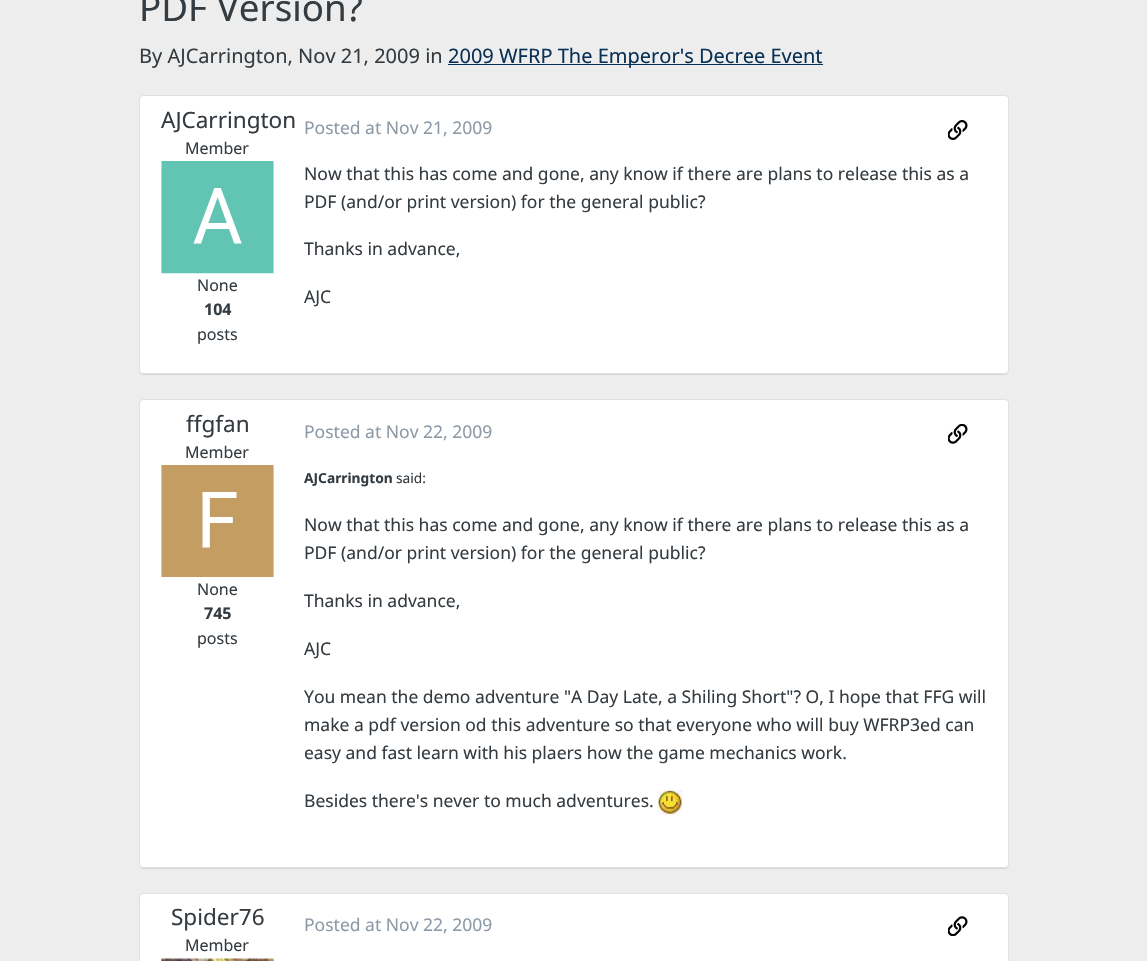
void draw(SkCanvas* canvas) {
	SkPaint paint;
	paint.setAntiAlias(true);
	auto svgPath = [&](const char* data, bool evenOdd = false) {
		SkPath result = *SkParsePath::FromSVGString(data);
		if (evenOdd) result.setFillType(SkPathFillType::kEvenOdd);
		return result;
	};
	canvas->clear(0xffededed);
	SkFont f1(fontMgr->matchFamilyStyle("Noto Sans", SkFontStyle::Normal()), 36.75);
	f1.setSubpixel(true);
	paint.setColor(0xff353c41);
	canvas->drawString("PDF Version?", 139, 21, f1, paint);
	SkFont f2(fontMgr->matchFamilyStyle("Noto Sans", SkFontStyle::Normal()), 20);
	f2.setSubpixel(true);
	canvas->drawString("By AJCarrington, Nov 21, 2009 in", 139, 63, f2, paint);
	paint.setColor(0xff093156);
	canvas->drawRect(SkRect::MakeXYWH(448, 64, 375, 1), paint);
	canvas->drawString("2009 WFRP The Emperor's Decree Event", 448, 63, f2, paint);
	paint.setColor(0xffd5d5d5);
	canvas->drawPath(svgPath("M139 371C139 373 141 375 143 375H1005C1007 375 1009 373 1009 371V99V370C1009 372 1007 374 1005 374H142C141 374 140 373 139 371Z"), paint);
	paint.setColor(0xffffffff);
	canvas->drawRoundRect(SkRect::MakeXYWH(139.5, 95.5, 869, 278), 3.5, 3.5, paint);
	paint.setStroke(true);
	paint.setStrokeWidth(1);
	paint.setColor(0xffe0e0e0);
	canvas->drawRoundRect(SkRect::MakeXYWH(139.5, 95.5, 869, 278), 3.5, 3.5, paint);
	SkFont f3(fontMgr->matchFamilyStyle("Noto Sans", SkFontStyle::Normal()), 22.5);
	f3.setSubpixel(true);
	paint.setStroke(false);
	paint.setColor(0xff353c41);
	canvas->drawString("AJCarrington", 161, 128, f3, paint);
	SkFont f4(fontMgr->matchFamilyStyle("Noto Sans", SkFontStyle::Normal()), 16);
	f4.setSubpixel(true);
	canvas->drawString("Member", 185, 154, f4, paint);
	canvas->drawImageRect(SkImages::DeferredFromEncodedData(SkData::MakeFromFileName("img1.png")), SkRect::MakeXYWH(161, 161, 113, 113), SkSamplingOptions());
	canvas->drawString("None", 197, 291, f4, paint);
	SkFont f5(fontMgr->matchFamilyStyle("Noto Sans", SkFontStyle::Bold()), 16);
	f5.setSubpixel(true);
	canvas->drawString("104", 204, 315, f5, paint);
	canvas->drawString("posts", 197, 340, f4, paint);
	SkFont f6(fontMgr->matchFamilyStyle("Noto Sans", SkFontStyle::Normal()), 17.5);
	f6.setSubpixel(true);
	paint.setColor(0xff8d9aa6);
	canvas->drawString("Posted at Nov 21, 2009", 304, 134, f6, paint);
	canvas->drawImageRect(SkImages::DeferredFromEncodedData(SkData::MakeFromFileName("img2.png")), SkRect::MakeXYWH(948, 120, 20, 20), SkSamplingOptions());
	paint.setColor(0xff353c41);
	canvas->drawString("Now that this has come and gone, any know if there are plans to release this as a", 304, 180, f6, paint);
	canvas->drawString("PDF (and/or print version) for the general public?", 304, 208, f6, paint);
	canvas->drawString("Thanks in advance,", 304, 255, f6, paint);
	canvas->drawString("AJC", 304, 303, f6, paint);
	paint.setColor(0xffd5d5d5);
	canvas->drawPath(svgPath("M139 865C139 867 141 869 143 869H1005C1007 869 1009 867 1009 865V403V864C1009 866 1007 868 1005 868H142C141 868 140 867 139 865Z"), paint);
	paint.setColor(0xffffffff);
	canvas->drawRoundRect(SkRect::MakeXYWH(139.5, 399.5, 869, 468), 3.5, 3.5, paint);
	paint.setStroke(true);
	paint.setColor(0xffe0e0e0);
	canvas->drawRoundRect(SkRect::MakeXYWH(139.5, 399.5, 869, 468), 3.5, 3.5, paint);
	paint.setStroke(false);
	paint.setColor(0xff353c41);
	canvas->drawString("ffgfan", 186, 432, f3, paint);
	canvas->drawString("Member", 185, 458, f4, paint);
	canvas->drawImageRect(SkImages::DeferredFromEncodedData(SkData::MakeFromFileName("img3.png")), SkRect::MakeXYWH(161, 465, 113, 112), SkSamplingOptions());
	canvas->drawString("None", 197, 595, f4, paint);
	canvas->drawString("745", 204, 619, f5, paint);
	canvas->drawString("posts", 197, 644, f4, paint);
	paint.setColor(0xff8d9aa6);
	canvas->drawString("Posted at Nov 22, 2009", 304, 438, f6, paint);
	canvas->drawImageRect(SkImages::DeferredFromEncodedData(SkData::MakeFromFileName("img4.png")), SkRect::MakeXYWH(948, 424, 20, 20), SkSamplingOptions());
	SkFont f7(fontMgr->matchFamilyStyle("Noto Sans", SkFontStyle::Bold()), 13.75);
	f7.setSubpixel(true);
	paint.setColor(0xff353c41);
	canvas->drawString("AJCarrington", 304, 483, f7, paint);
	SkFont f8(fontMgr->matchFamilyStyle("Noto Sans", SkFontStyle::Normal()), 13.75);
	f8.setSubpixel(true);
	canvas->drawString("said:", 396, 483, f8, paint);
	canvas->drawString("Now that this has come and gone, any know if there are plans to release this as a", 304, 531, f6, paint);
	canvas->drawString("PDF (and/or print version) for the general public?", 304, 559, f6, paint);
	canvas->drawString("Thanks in advance,", 304, 607, f6, paint);
	canvas->drawString("AJC", 304, 655, f6, paint);
	canvas->drawString("You mean the demo adventure \"A Day Late, a Shiling Short\"? O, I hope that FFG will", 304, 703, f6, paint);
	canvas->drawString("make a pdf version od this adventure so that everyone who will buy WFRP3ed can", 304, 731, f6, paint);
	canvas->drawString("easy and fast learn with his plaers how the game mechanics work.", 304, 759, f6, paint);
	canvas->drawString("Besides there's never to much adventures.", 304, 807, f6, paint);
	canvas->drawImageRect(SkImages::DeferredFromEncodedData(SkData::MakeFromFileName("img5.png")), SkRect::MakeXYWH(657, 789, 26, 26), SkSamplingOptions());
	paint.setColor(0xffffffff);
	canvas->drawRoundRect(SkRect::MakeXYWH(139.5, 893.5, 869, 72), 3.5, 3.5, paint);
	paint.setStroke(true);
	paint.setColor(0xffe0e0e0);
	canvas->drawRoundRect(SkRect::MakeXYWH(139.5, 893.5, 869, 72), 3.5, 3.5, paint);
	paint.setStroke(false);
	paint.setColor(0xff353c41);
	canvas->drawString("Spider76", 171, 925, f3, paint);
	canvas->drawString("Member", 185, 951, f4, paint);
	canvas->drawImageRect(SkImages::DeferredFromEncodedData(SkData::MakeFromFileName("img6.png")), SkRect::MakeXYWH(161, 958, 113, 3), SkSamplingOptions());
	paint.setColor(0xff8d9aa6);
	canvas->drawString("Posted at Nov 22, 2009", 304, 931, f6, paint);
	canvas->drawImageRect(SkImages::DeferredFromEncodedData(SkData::MakeFromFileName("img7.png")), SkRect::MakeXYWH(948, 916, 20, 20), SkSamplingOptions());
}
